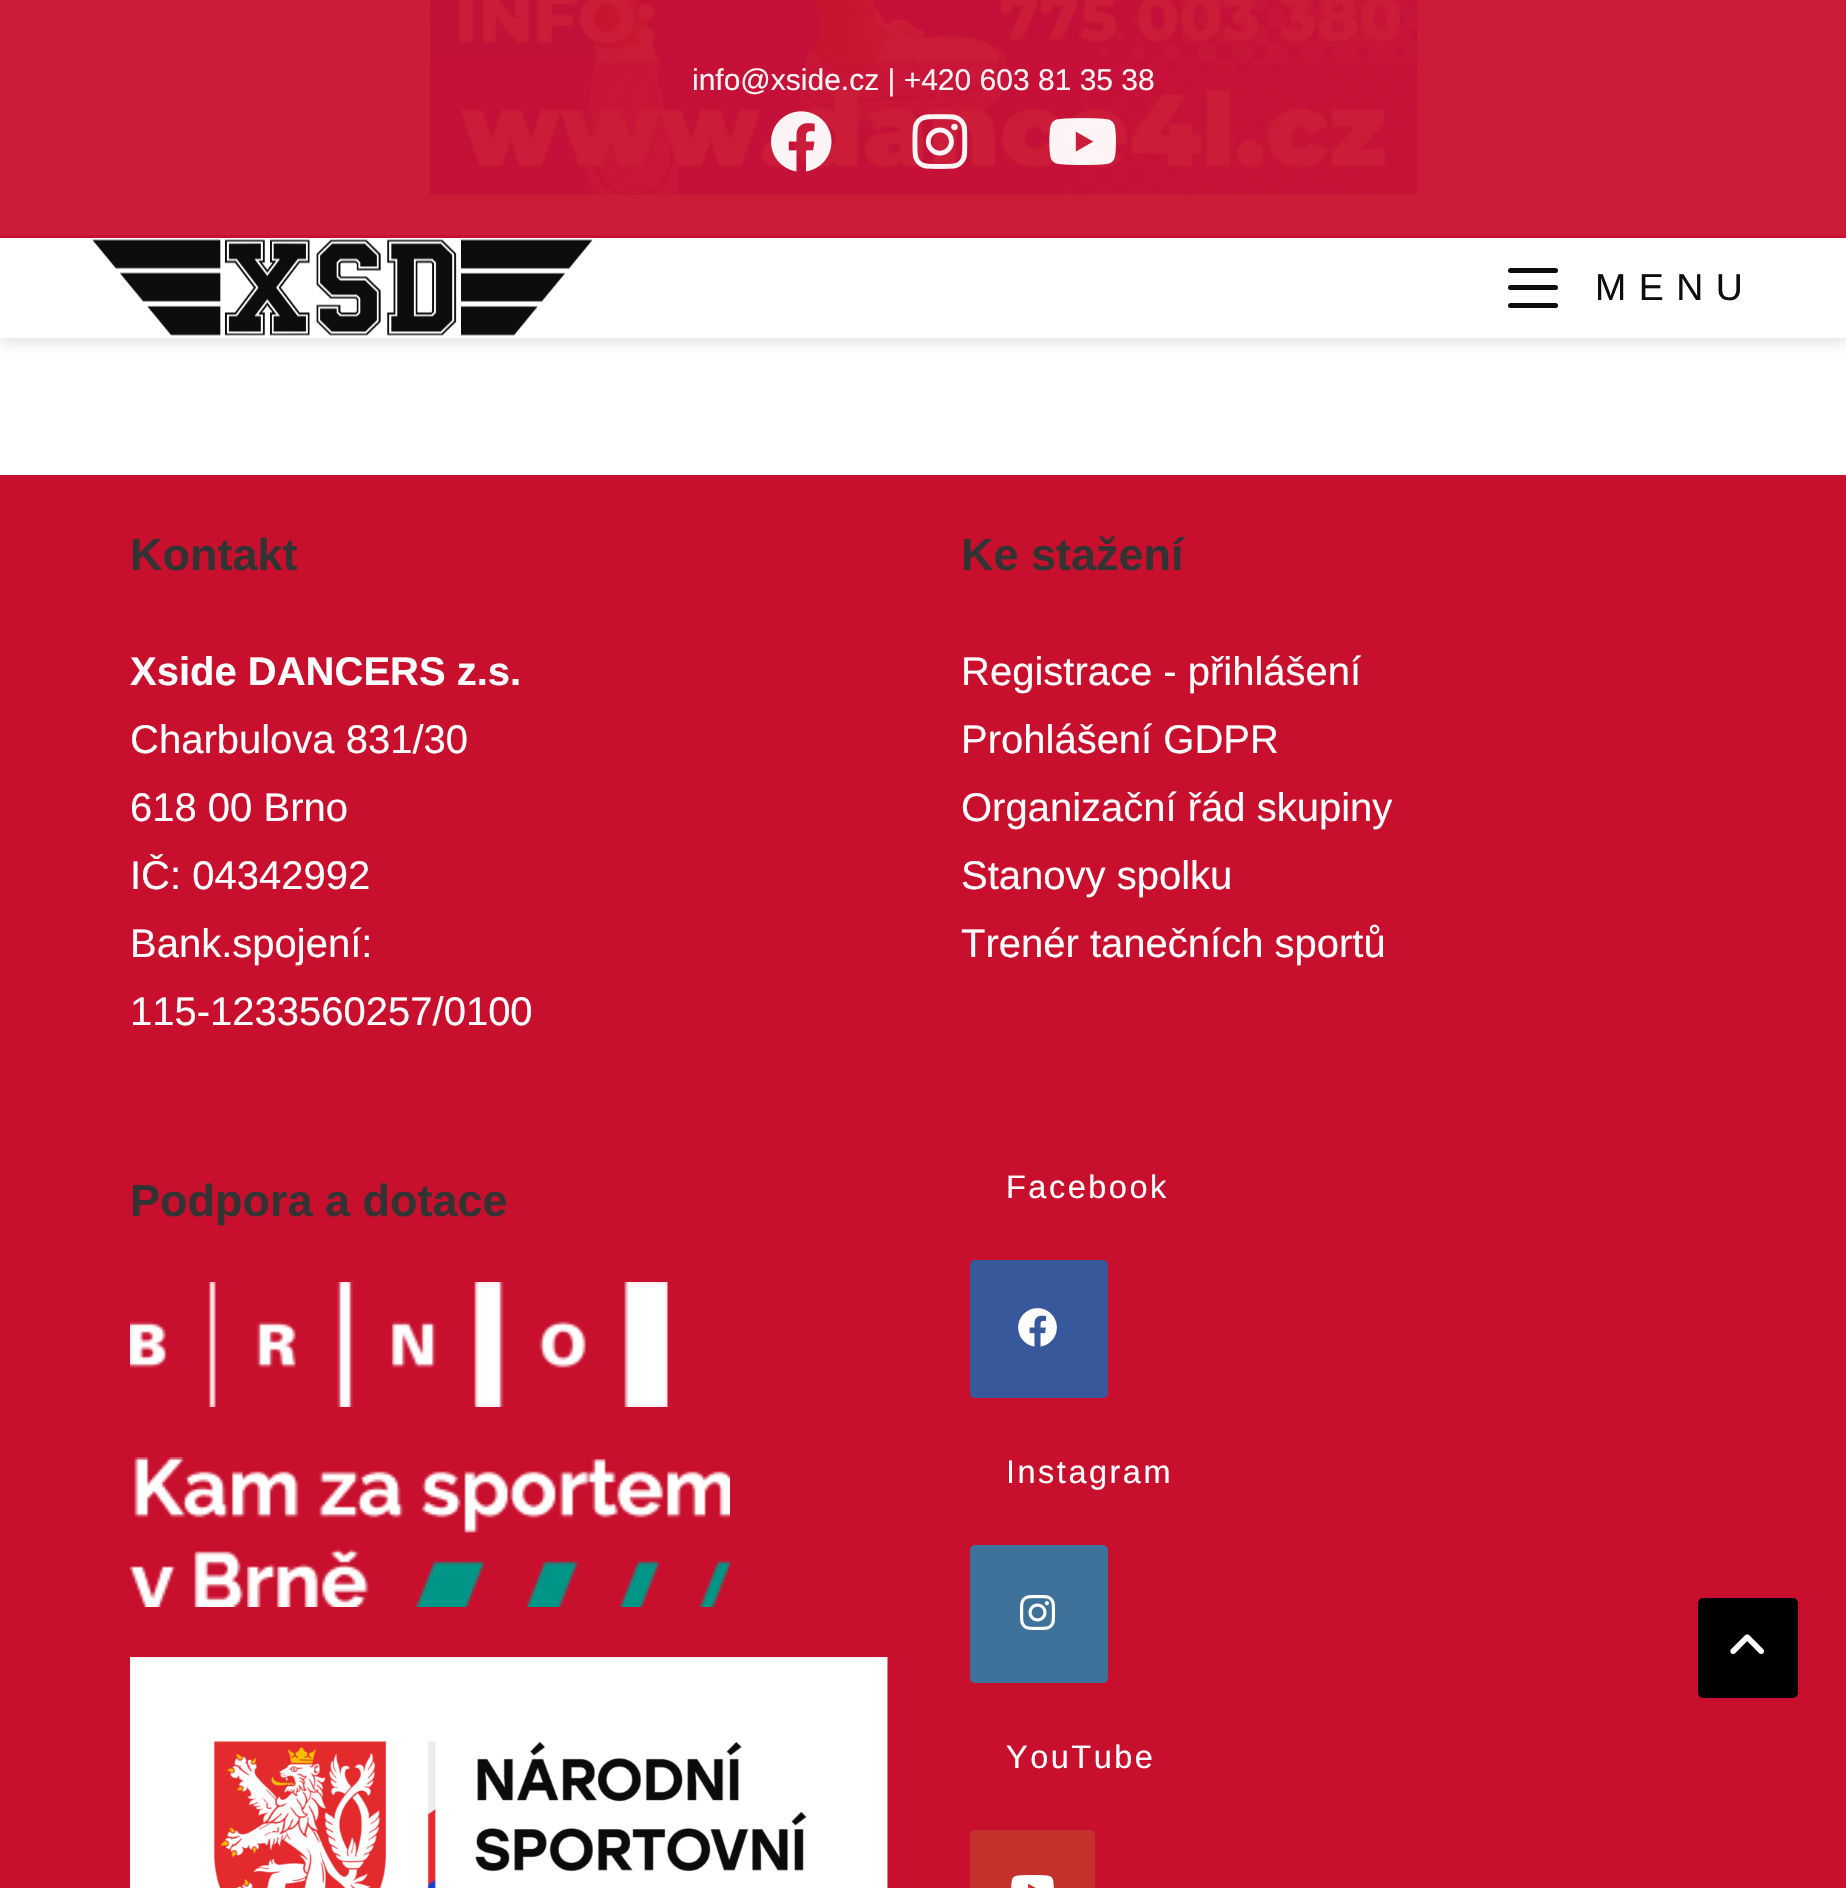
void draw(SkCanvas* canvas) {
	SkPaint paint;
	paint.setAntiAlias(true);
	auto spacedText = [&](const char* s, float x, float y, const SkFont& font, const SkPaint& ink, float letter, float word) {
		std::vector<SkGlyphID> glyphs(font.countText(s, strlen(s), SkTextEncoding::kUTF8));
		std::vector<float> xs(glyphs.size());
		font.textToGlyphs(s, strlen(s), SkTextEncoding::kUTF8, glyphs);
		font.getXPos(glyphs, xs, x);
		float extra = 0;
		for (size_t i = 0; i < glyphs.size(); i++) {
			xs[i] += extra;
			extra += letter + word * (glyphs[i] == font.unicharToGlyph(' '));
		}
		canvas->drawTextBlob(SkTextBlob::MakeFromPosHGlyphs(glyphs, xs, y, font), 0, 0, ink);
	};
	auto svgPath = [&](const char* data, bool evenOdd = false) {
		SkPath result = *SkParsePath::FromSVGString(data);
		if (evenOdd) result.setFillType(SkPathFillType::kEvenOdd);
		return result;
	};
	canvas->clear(0xffffffff);
	canvas->drawImageRect(SkImages::DeferredFromEncodedData(SkData::MakeFromFileName("img1.png")), SkRect::MakeXYWH(430, 0, 988, 195), SkSamplingOptions());
	canvas->save();
	canvas->clipPath(svgPath("M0 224H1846V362H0ZM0 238H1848V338H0Z", true), true);
	paint.setColor(0x1a000000);
	paint.setMaskFilter(SkMaskFilter::MakeBlur(kNormal_SkBlurStyle, 6));
	canvas->drawRect(SkRect::MakeXYWH(0, 243, 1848, 100), paint);
	paint.setMaskFilter(nullptr);
	canvas->restore();
	paint.setColor(0xf2c8102e);
	canvas->drawRect(SkRect::MakeXYWH(0, 0, 1846, 238), paint);
	canvas->drawRect(SkRect::MakeXYWH(0, 235, 1846, 3), paint);
	SkFont f1(fontMgr->matchFamilyStyle("Liberation Sans", SkFontStyle::Normal()), 30);
	f1.setSubpixel(true);
	paint.setColor(0xfffcf3f5);
	canvas->drawString("info@xside.cz | +420 603 81 35 38", 692, 90, f1, paint);
	canvas->drawImageRect(SkImages::DeferredFromEncodedData(SkData::MakeFromFileName("img2.png")), SkRect::MakeXYWH(771, 111, 61, 61), SkSamplingOptions());
	canvas->drawImageRect(SkImages::DeferredFromEncodedData(SkData::MakeFromFileName("img3.png")), SkRect::MakeXYWH(912, 114, 56, 55), SkSamplingOptions());
	canvas->drawImageRect(SkImages::DeferredFromEncodedData(SkData::MakeFromFileName("img4.png")), SkRect::MakeXYWH(1049, 118, 67, 47), SkSamplingOptions());
	paint.setColor(0xf2ffffff);
	canvas->drawRect(SkRect::MakeXYWH(0, 337, 1846, 1), paint);
	canvas->drawImageRect(SkImages::DeferredFromEncodedData(SkData::MakeFromFileName("img5.png")), SkRect::MakeXYWH(92, 239, 501, 97), SkSamplingOptions());
	paint.setColor(0xff0d0d0d);
	canvas->drawRoundRect(SkRect::MakeXYWH(1508, 285, 50, 5), 2.5, 2.5, paint);
	canvas->drawRoundRect(SkRect::MakeXYWH(1508, 268, 50, 5), 2.5, 2.5, paint);
	canvas->drawRoundRect(SkRect::MakeXYWH(1508, 303, 50, 5), 2.5, 2.5, paint);
	SkFont f2(fontMgr->matchFamilyStyle("Liberation Sans", SkFontStyle::Normal()), 37.5);
	f2.setSubpixel(true);
	spacedText("MENU", 1595, 300, f2, paint, 12.5, 0);
	paint.setColor(0xffc8102e);
	canvas->drawRect(SkRect::MakeXYWH(0, 475, 1846, 1413), paint);
	SkFont f3(fontMgr->matchFamilyStyle("Liberation Sans", SkFontStyle::Bold()), 45);
	f3.setSubpixel(true);
	paint.setColor(0xff333333);
	canvas->drawString("Kontakt", 130, 570, f3, paint);
	SkFont f4(fontMgr->matchFamilyStyle("Liberation Sans", SkFontStyle::Bold()), 40);
	f4.setSubpixel(true);
	paint.setColor(0xffffffff);
	canvas->drawString("Xside DANCERS z.s.", 130, 685, f4, paint);
	SkFont f5(fontMgr->matchFamilyStyle("Liberation Sans", SkFontStyle::Normal()), 40);
	f5.setSubpixel(true);
	canvas->drawString("Charbulova 831/30", 130, 753, f5, paint);
	canvas->drawString("618 00 Brno", 130, 821, f5, paint);
	canvas->drawString("IČ: 04342992", 130, 889, f5, paint);
	canvas->drawString("Bank.spojení:", 130, 957, f5, paint);
	canvas->drawString("115-1233560257/0100", 130, 1025, f5, paint);
	paint.setColor(0xff333333);
	canvas->drawString("Ke stažení", 961, 570, f3, paint);
	paint.setColor(0xffffffff);
	canvas->drawString("Registrace - přihlášení", 961, 685, f5, paint);
	canvas->drawString("Prohlášení GDPR", 961, 753, f5, paint);
	canvas->drawString("Organizační řád skupiny", 961, 821, f5, paint);
	canvas->drawString("Stanovy spolku", 961, 889, f5, paint);
	canvas->drawString("Trenér tanečních sportů", 961, 957, f5, paint);
	paint.setColor(0xff333333);
	canvas->drawString("Podpora a dotace", 130, 1216, f3, paint);
	canvas->drawImageRect(SkImages::DeferredFromEncodedData(SkData::MakeFromFileName("img6.png")), SkRect::MakeXYWH(130, 1282, 538, 125), SkSamplingOptions());
	canvas->drawImageRect(SkImages::DeferredFromEncodedData(SkData::MakeFromFileName("img7.png")), SkRect::MakeXYWH(130, 1457, 600, 150), SkSamplingOptions());
	canvas->drawImageRect(SkImages::DeferredFromEncodedData(SkData::MakeFromFileName("img8.png")), SkRect::MakeXYWH(130, 1657, 758, 231), SkSamplingOptions());
	SkFont f6(fontMgr->matchFamilyStyle("Liberation Sans", SkFontStyle::Normal()), 32.5);
	f6.setSubpixel(true);
	paint.setColor(0xffffffff);
	spacedText("Facebook", 1006, 1198, f6, paint, 2.5, 0);
	paint.setColor(0xff37589b);
	canvas->drawRoundRect(SkRect::MakeXYWH(970, 1260, 138, 138), 5, 5, paint);
	canvas->drawImageRect(SkImages::DeferredFromEncodedData(SkData::MakeFromFileName("img9.png")), SkRect::MakeXYWH(1018, 1308, 39, 39), SkSamplingOptions());
	paint.setColor(0xffffffff);
	spacedText("Instagram", 1006, 1483, f6, paint, 2.5, 0);
	paint.setColor(0xff3f729b);
	canvas->drawRoundRect(SkRect::MakeXYWH(970, 1545, 138, 138), 5, 5, paint);
	canvas->drawImageRect(SkImages::DeferredFromEncodedData(SkData::MakeFromFileName("img10.png")), SkRect::MakeXYWH(1020, 1595, 35, 35), SkSamplingOptions());
	paint.setColor(0xffffffff);
	spacedText("YouTube", 1006, 1768, f6, paint, 2.5, 0);
	paint.setColor(0xffc4302b);
	canvas->drawRoundRect(SkRect::MakeXYWH(970, 1830, 125, 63), 5, 5, paint);
	canvas->drawImageRect(SkImages::DeferredFromEncodedData(SkData::MakeFromFileName("img11.png")), SkRect::MakeXYWH(1011, 1875, 43, 13), SkSamplingOptions());
	paint.setColor(0xff000000);
	canvas->drawRoundRect(SkRect::MakeXYWH(1698, 1598, 100, 100), 5, 5, paint);
	canvas->drawImageRect(SkImages::DeferredFromEncodedData(SkData::MakeFromFileName("img12.png")), SkRect::MakeXYWH(1730, 1634, 34, 20), SkSamplingOptions());
}
